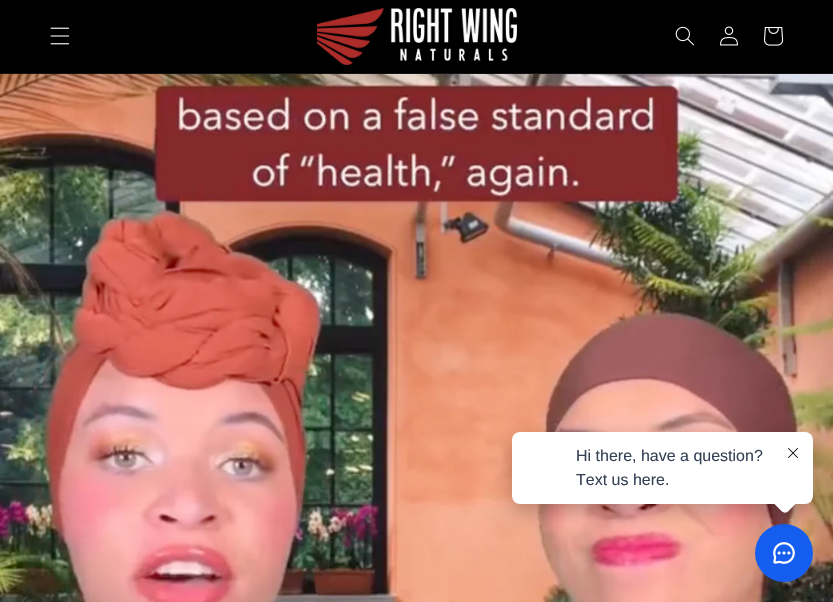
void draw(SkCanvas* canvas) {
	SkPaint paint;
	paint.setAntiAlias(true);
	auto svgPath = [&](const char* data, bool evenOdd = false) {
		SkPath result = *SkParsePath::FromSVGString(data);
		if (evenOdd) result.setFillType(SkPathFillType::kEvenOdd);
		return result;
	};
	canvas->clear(0xffffffff);
	canvas->drawImageRect(SkImages::DeferredFromEncodedData(SkData::MakeFromFileName("img1.png")), SkRect::MakeXYWH(0, 74, 833, 528), SkSamplingOptions());
	paint.setColor(0xff000000);
	canvas->drawRect(SkRect::MakeXYWH(0, 0, 833, 73), paint);
	paint.setColor(0xff141414);
	canvas->drawRect(SkRect::MakeXYWH(0, 73, 833, 1), paint);
	canvas->drawImageRect(SkImages::DeferredFromEncodedData(SkData::MakeFromFileName("img2.png")), SkRect::MakeXYWH(50, 27, 20, 18), SkSamplingOptions());
	canvas->drawImageRect(SkImages::DeferredFromEncodedData(SkData::MakeFromFileName("img3.png")), SkRect::MakeXYWH(317, 8, 200, 57), SkSamplingOptions());
	canvas->drawImageRect(SkImages::DeferredFromEncodedData(SkData::MakeFromFileName("img4.png")), SkRect::MakeXYWH(675, 26, 19, 20), SkSamplingOptions());
	canvas->drawImageRect(SkImages::DeferredFromEncodedData(SkData::MakeFromFileName("img5.png")), SkRect::MakeXYWH(720, 26, 18, 20), SkSamplingOptions());
	canvas->drawImageRect(SkImages::DeferredFromEncodedData(SkData::MakeFromFileName("img6.png")), SkRect::MakeXYWH(764, 27, 20, 19), SkSamplingOptions());
	paint.setColor(0xff155eef);
	canvas->drawCircle(784, 553, 29, paint);
	canvas->drawImageRect(SkImages::DeferredFromEncodedData(SkData::MakeFromFileName("img8.png")), SkRect::MakeXYWH(773, 542, 22, 22), SkSamplingOptions());
	paint.setColor(0x3d000000);
	paint.setMaskFilter(SkMaskFilter::MakeBlur(kNormal_SkBlurStyle, 10));
	canvas->drawRoundRect(SkRect::MakeXYWH(512, 440, 301, 72), 8, 8, paint);
	paint.setMaskFilter(nullptr);
	paint.setColor(0xffffffff);
	canvas->drawRoundRect(SkRect::MakeXYWH(512, 432, 301, 72), 8, 8, paint);
	SkFont f1(fontMgr->matchFamilyStyle("Liberation Sans", SkFontStyle::Normal()), 16);
	f1.setSubpixel(true);
	paint.setColor(0xff344054);
	canvas->drawString("Hi there, have a question?", 576, 461, f1, paint);
	canvas->drawString("Text us here.", 576, 485, f1, paint);
	paint.setColor(0xffffffff);
	canvas->drawPath(svgPath("M788 488.5L796.5 497C798 498.5 798 501.5 796.5 503L788 511.5C786.5 513 783.5 513 782 511.5L773.5 503C772 501.5 772 498.5 773.5 497L782 488.5C783.5 487 786.5 487 788 488.5Z"), paint);
	canvas->drawImageRect(SkImages::DeferredFromEncodedData(SkData::MakeFromFileName("img7.png")), SkRect::MakeXYWH(788, 448, 10, 10), SkSamplingOptions());
}
